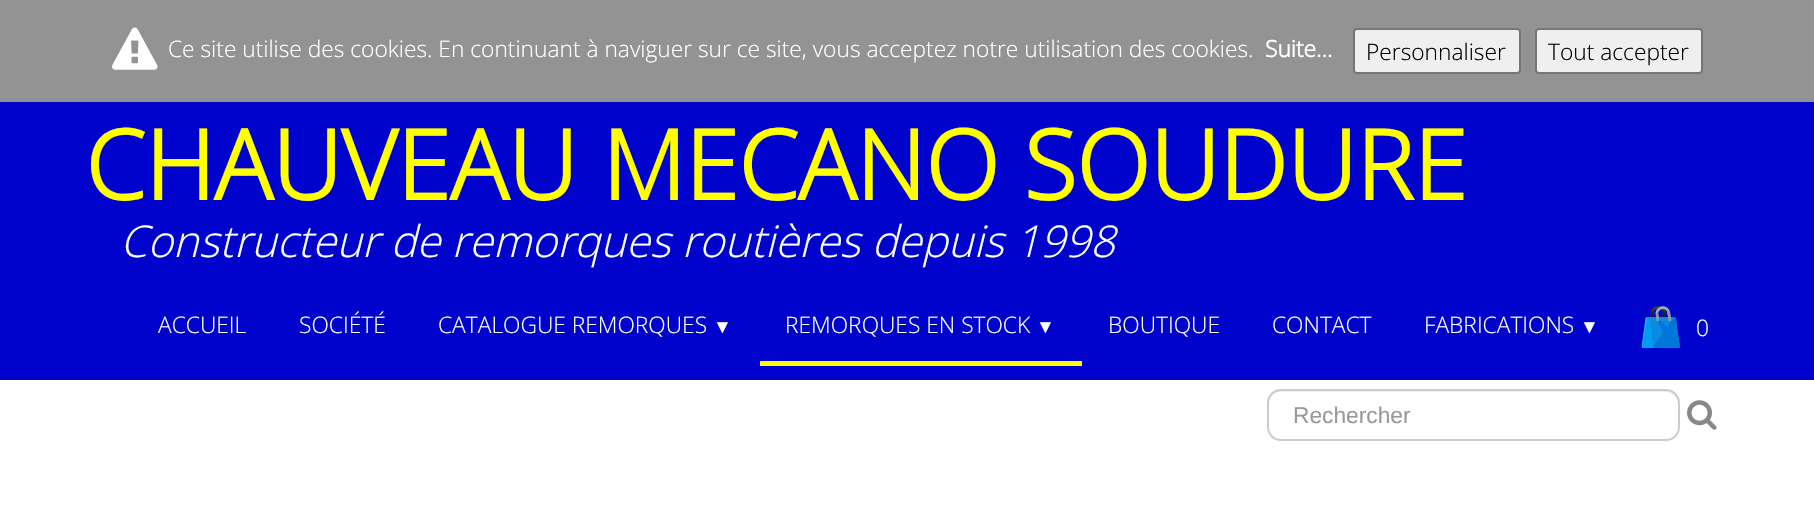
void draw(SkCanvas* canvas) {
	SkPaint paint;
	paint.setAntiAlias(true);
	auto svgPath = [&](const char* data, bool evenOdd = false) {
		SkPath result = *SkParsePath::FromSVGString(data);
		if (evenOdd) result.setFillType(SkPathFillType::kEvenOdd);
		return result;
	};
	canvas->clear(0xffffffff);
	paint.setColor(0xff939393);
	canvas->drawRect(SkRect::MakeXYWH(0, 0, 1814, 102), paint);
	canvas->drawImageRect(SkImages::DeferredFromEncodedData(SkData::MakeFromFileName("img1.png")), SkRect::MakeXYWH(112, 27, 46, 43), SkSamplingOptions());
	SkFont f1(fontMgr->matchFamilyStyle("Open Sans", SkFontStyle(300, SkFontStyle::kNormal_Width, SkFontStyle::kUpright_Slant)), 22.75);
	f1.setSubpixel(true);
	paint.setColor(0xffffffff);
	canvas->drawString("Ce site utilise des cookies. En continuant à naviguer sur ce site, vous acceptez notre utilisation des cookies.", 168, 57, f1, paint);
	SkFont f2(fontMgr->matchFamilyStyle("Open Sans", SkFontStyle::Bold()), 22.75);
	f2.setSubpixel(true);
	canvas->drawString("Suite...", 1265, 57, f2, paint);
	paint.setColor(0xffefefef);
	canvas->drawRoundRect(SkRect::MakeXYWH(1354, 29, 166, 44), 3, 3, paint);
	paint.setStroke(true);
	paint.setStrokeWidth(2);
	paint.setColor(0xff767676);
	canvas->drawRoundRect(SkRect::MakeXYWH(1354, 29, 166, 44), 3, 3, paint);
	paint.setStroke(false);
	paint.setColor(0xff000000);
	canvas->drawString("Personnaliser", 1366, 60, f1, paint);
	paint.setColor(0xffefefef);
	canvas->drawRoundRect(SkRect::MakeXYWH(1536, 29, 166, 44), 3, 3, paint);
	paint.setStroke(true);
	paint.setColor(0xff767676);
	canvas->drawRoundRect(SkRect::MakeXYWH(1536, 29, 166, 44), 3, 3, paint);
	paint.setStroke(false);
	paint.setColor(0xff000000);
	canvas->drawString("Tout accepter", 1548, 60, f1, paint);
	paint.setColor(0xff0003cc);
	canvas->drawRect(SkRect::MakeXYWH(0, 102, 1814, 278), paint);
	SkFont f3(fontMgr->matchFamilyStyle("Open Sans", SkFontStyle::Bold()), 96.25);
	f3.setSubpixel(true);
	paint.setColor(0xffffff00);
	canvas->drawString("CHAUVEAU MECANO SOUDURE", 85, 200, f3, paint);
	SkFont f4(fontMgr->matchFamilyStyle("Open Sans", SkFontStyle(300, SkFontStyle::kNormal_Width, SkFontStyle::kItalic_Slant)), 43.75);
	f4.setSubpixel(true);
	paint.setColor(0xffffffff);
	canvas->drawString("Constructeur de remorques routières depuis 1998", 120, 257, f4, paint);
	canvas->drawString("ACCUEIL", 158, 333, f1, paint);
	canvas->drawString("SOCIÉTÉ", 299, 333, f1, paint);
	canvas->drawString("CATALOGUE REMORQUES", 438, 333, f1, paint);
	SkFont f5(fontMgr->matchFamilyStyle("Liberation Sans", SkFontStyle::Normal()), 19);
	f5.setSubpixel(true);
	canvas->drawString("▼", 713, 333, f5, paint);
	paint.setColor(0xffffff00);
	canvas->drawRect(SkRect::MakeXYWH(760, 361, 322, 5), paint);
	paint.setColor(0xffffffff);
	canvas->drawString("REMORQUES EN STOCK", 785, 333, f1, paint);
	canvas->drawString("▼", 1036, 333, f5, paint);
	canvas->drawString("BOUTIQUE", 1108, 333, f1, paint);
	canvas->drawString("CONTACT", 1272, 333, f1, paint);
	canvas->drawString("FABRICATIONS", 1424, 333, f1, paint);
	canvas->drawString("▼", 1580, 333, f5, paint);
	canvas->drawImageRect(SkImages::DeferredFromEncodedData(SkData::MakeFromFileName("img2.png")), SkRect::MakeXYWH(1641, 306, 39, 42), SkSamplingOptions());
	canvas->drawString("0", 1696, 336, f1, paint);
	paint.setColor(0xffececec);
	canvas->drawPath(svgPath("M1281 392H1668C1675 394 1678 400 1678 406V402C1678 395 1673 390 1666 390H1281C1274 390 1269 395 1269 402V406C1269 399 1272 392 1281 392ZM1678 427V429ZM1269 430V427Z", true), paint);
	paint.setStroke(true);
	paint.setColor(0xffcccccc);
	canvas->drawRoundRect(SkRect::MakeXYWH(1268, 390, 411, 50), 13, 13, paint);
	SkFont f6(fontMgr->matchFamilyStyle("Liberation Sans", SkFontStyle::Normal()), 22.75);
	f6.setSubpixel(true);
	paint.setStroke(false);
	paint.setColor(0xff999999);
	canvas->drawString("Rechercher", 1293, 423, f6, paint);
	canvas->drawImageRect(SkImages::DeferredFromEncodedData(SkData::MakeFromFileName("img3.png")), SkRect::MakeXYWH(1687, 400, 30, 30), SkSamplingOptions());
}
